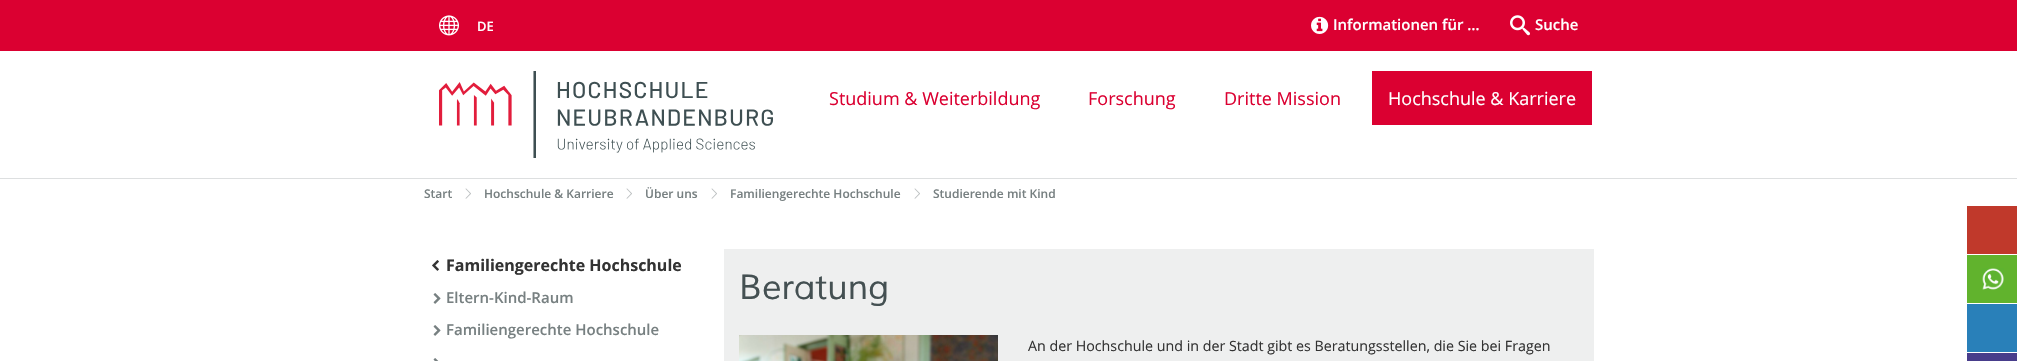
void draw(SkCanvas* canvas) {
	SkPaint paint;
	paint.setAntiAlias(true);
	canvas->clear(0xffffffff);
	paint.setColor(0xffdb0031);
	canvas->drawRect(SkRect::MakeXYWH(0, 0, 2017, 51), paint);
	canvas->drawImageRect(SkImages::DeferredFromEncodedData(SkData::MakeFromFileName("img1.png")), SkRect::MakeXYWH(439, 15, 20, 21), SkSamplingOptions());
	SkFont f1(fontMgr->matchFamilyStyle("Open Sans", SkFontStyle(600, SkFontStyle::kNormal_Width, SkFontStyle::kUpright_Slant)), 13);
	f1.setSubpixel(true);
	paint.setColor(0xffffffff);
	canvas->drawString("DE", 477, 31, f1, paint);
	canvas->drawImageRect(SkImages::DeferredFromEncodedData(SkData::MakeFromFileName("img2.png")), SkRect::MakeXYWH(1311, 16, 18, 18), SkSamplingOptions());
	SkFont f2(fontMgr->matchFamilyStyle("Open Sans", SkFontStyle(600, SkFontStyle::kNormal_Width, SkFontStyle::kUpright_Slant)), 15);
	f2.setSubpixel(true);
	canvas->drawString("Informationen für …", 1333, 30, f2, paint);
	canvas->drawImageRect(SkImages::DeferredFromEncodedData(SkData::MakeFromFileName("img3.png")), SkRect::MakeXYWH(1510, 15, 20, 21), SkSamplingOptions());
	canvas->drawString("Suche", 1535, 30, f2, paint);
	paint.setColor(0xffdddfe0);
	canvas->drawRect(SkRect::MakeXYWH(0, 178, 2017, 1), paint);
	canvas->drawImageRect(SkImages::DeferredFromEncodedData(SkData::MakeFromFileName("img4.png")), SkRect::MakeXYWH(439, 71, 334, 87), SkSamplingOptions());
	SkFont f3(fontMgr->matchFamilyStyle("Open Sans", SkFontStyle::Normal()), 18);
	f3.setSubpixel(true);
	paint.setColor(0xffdb0031);
	canvas->drawString("Studium & Weiterbildung", 829, 105, f3, paint);
	canvas->drawString("Forschung", 1088, 105, f3, paint);
	canvas->drawString("Dritte Mission", 1224, 105, f3, paint);
	canvas->drawRect(SkRect::MakeXYWH(1372, 71, 220, 54), paint);
	paint.setColor(0xffffffff);
	canvas->drawString("Hochschule & Karriere", 1388, 105, f3, paint);
	SkFont f4(fontMgr->matchFamilyStyle("Open Sans", SkFontStyle(600, SkFontStyle::kNormal_Width, SkFontStyle::kUpright_Slant)), 12);
	f4.setSubpixel(true);
	paint.setColor(0xff778081);
	canvas->drawString("Start", 424, 198, f4, paint);
	canvas->drawImageRect(SkImages::DeferredFromEncodedData(SkData::MakeFromFileName("img5.png")), SkRect::MakeXYWH(465, 188, 6, 11), SkSamplingOptions());
	canvas->drawString("Hochschule & Karriere", 484, 198, f4, paint);
	canvas->drawImageRect(SkImages::DeferredFromEncodedData(SkData::MakeFromFileName("img5.png")), SkRect::MakeXYWH(626, 188, 6, 11), SkSamplingOptions());
	canvas->drawString("Über uns", 645, 198, f4, paint);
	canvas->drawImageRect(SkImages::DeferredFromEncodedData(SkData::MakeFromFileName("img5.png")), SkRect::MakeXYWH(711, 188, 6, 11), SkSamplingOptions());
	canvas->drawString("Familiengerechte Hochschule", 730, 198, f4, paint);
	canvas->drawImageRect(SkImages::DeferredFromEncodedData(SkData::MakeFromFileName("img5.png")), SkRect::MakeXYWH(914, 188, 6, 11), SkSamplingOptions());
	canvas->drawString("Studierende mit Kind", 933, 198, f4, paint);
	canvas->drawImageRect(SkImages::DeferredFromEncodedData(SkData::MakeFromFileName("img6.png")), SkRect::MakeXYWH(432, 260, 7, 11), SkSamplingOptions());
	SkFont f5(fontMgr->matchFamilyStyle("Open Sans", SkFontStyle::Bold()), 16);
	f5.setSubpixel(true);
	paint.setColor(0xff333333);
	canvas->drawString("Familiengerechte Hochschule", 446, 271, f5, paint);
	canvas->drawImageRect(SkImages::DeferredFromEncodedData(SkData::MakeFromFileName("img7.png")), SkRect::MakeXYWH(433, 293, 8, 11), SkSamplingOptions());
	paint.setColor(0xff778081);
	canvas->drawString("Eltern-Kind-Raum", 446, 303, f2, paint);
	canvas->drawImageRect(SkImages::DeferredFromEncodedData(SkData::MakeFromFileName("img7.png")), SkRect::MakeXYWH(433, 325, 8, 11), SkSamplingOptions());
	canvas->drawString("Familiengerechte Hochschule", 446, 335, f2, paint);
	canvas->drawImageRect(SkImages::DeferredFromEncodedData(SkData::MakeFromFileName("img8.png")), SkRect::MakeXYWH(433, 358, 6, 3), SkSamplingOptions());
	paint.setColor(0xffeeefef);
	canvas->drawRect(SkRect::MakeXYWH(724, 249, 870, 112), paint);
	SkFont f6(fontMgr->matchFamilyStyle("Muli", SkFontStyle::Italic()), 34.5);
	f6.setSubpixel(true);
	paint.setColor(0xff445052);
	canvas->drawString("Beratung", 739, 299, f6, paint);
	canvas->drawImageRect(SkImages::DeferredFromEncodedData(SkData::MakeFromFileName("img9.png")), SkRect::MakeXYWH(739, 335, 259, 26), SkSamplingOptions());
	SkFont f7(fontMgr->matchFamilyStyle("Open Sans", SkFontStyle::Normal()), 14.25);
	f7.setSubpixel(true);
	paint.setColor(0xff333333);
	canvas->drawString("An der Hochschule und in der Stadt gibt es Beratungsstellen, die Sie bei Fragen", 1028, 351, f7, paint);
	paint.setColor(0xffc0392b);
	canvas->drawRect(SkRect::MakeXYWH(1967, 206, 50, 48), paint);
	paint.setColor(0xff61b32d);
	canvas->drawRect(SkRect::MakeXYWH(1967, 255, 50, 48), paint);
	canvas->drawImageRect(SkImages::DeferredFromEncodedData(SkData::MakeFromFileName("img10.png")), SkRect::MakeXYWH(1982, 268, 22, 22), SkSamplingOptions());
	paint.setColor(0xff2980b9);
	canvas->drawRect(SkRect::MakeXYWH(1967, 304, 50, 48), paint);
	paint.setColor(0xff483d8b);
	canvas->drawRect(SkRect::MakeXYWH(1967, 353, 50, 8), paint);
}
